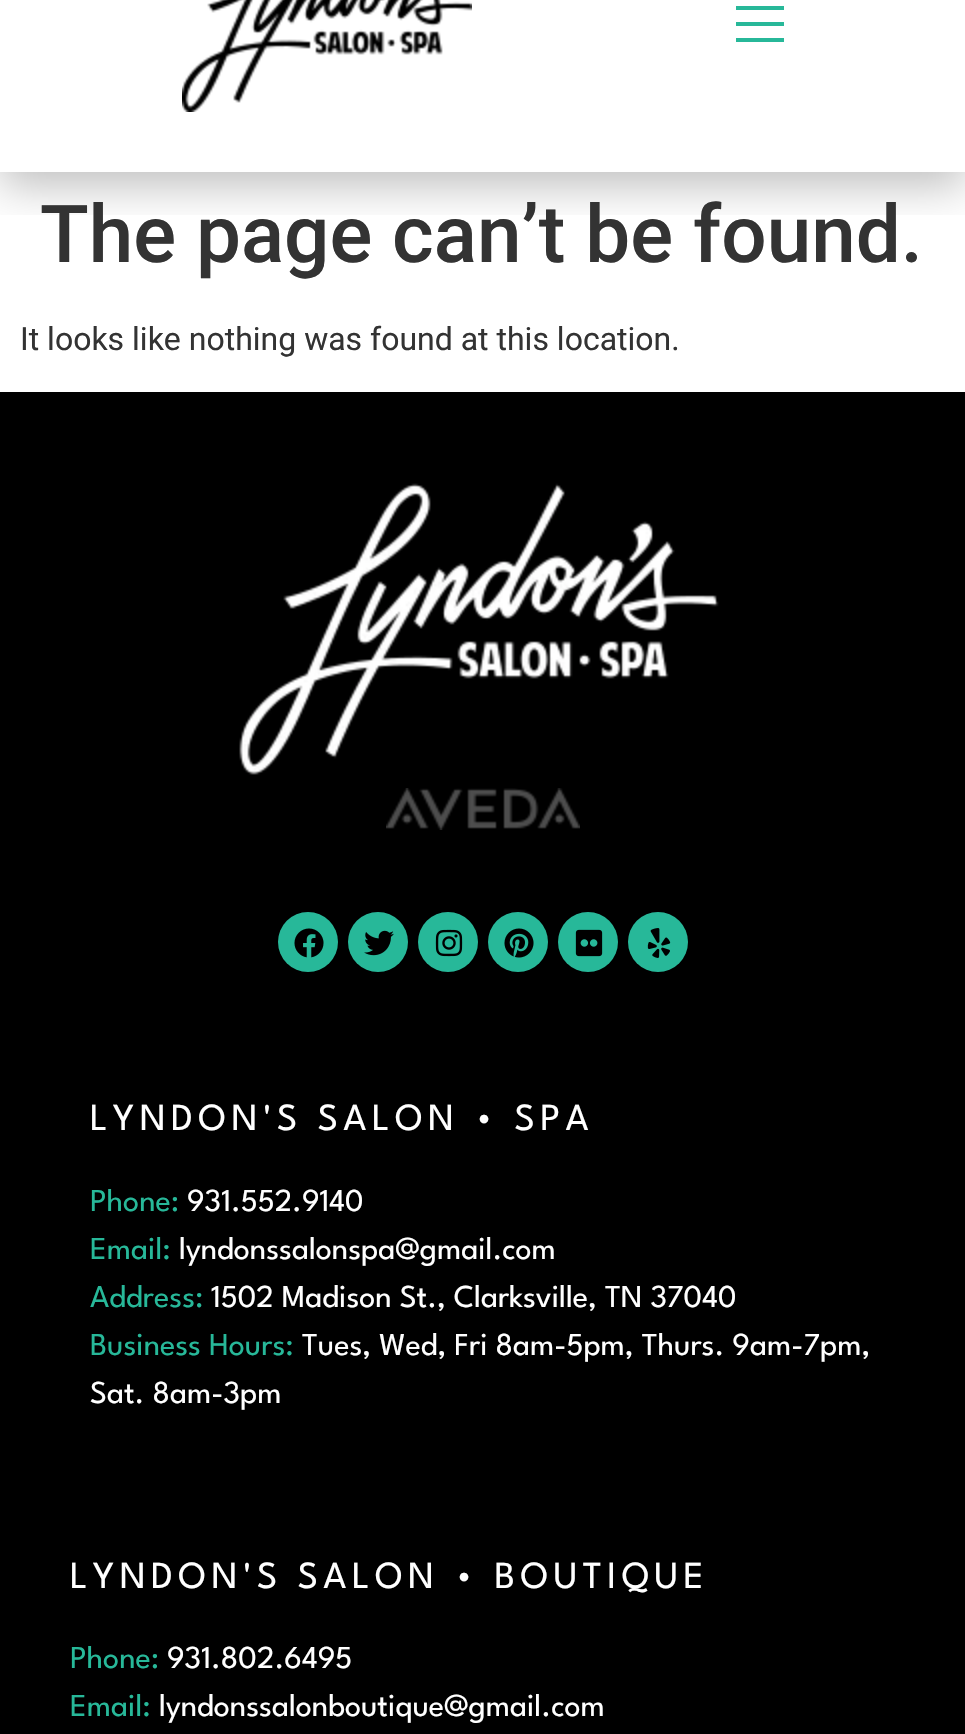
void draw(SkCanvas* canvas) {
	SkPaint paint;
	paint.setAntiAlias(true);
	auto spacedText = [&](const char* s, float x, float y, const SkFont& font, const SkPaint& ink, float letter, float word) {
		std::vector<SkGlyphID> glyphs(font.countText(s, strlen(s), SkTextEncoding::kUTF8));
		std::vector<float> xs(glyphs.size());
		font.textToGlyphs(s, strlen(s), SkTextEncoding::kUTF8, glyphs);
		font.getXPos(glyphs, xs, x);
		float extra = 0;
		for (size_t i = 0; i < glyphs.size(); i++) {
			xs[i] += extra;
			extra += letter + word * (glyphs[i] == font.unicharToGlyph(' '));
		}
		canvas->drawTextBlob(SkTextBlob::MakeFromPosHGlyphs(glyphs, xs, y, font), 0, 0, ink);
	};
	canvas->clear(0xffffffff);
	canvas->save();
	canvas->clipRect(SkRect::MakeXYWH(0, 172, 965, 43));
	paint.setColor(0x40000000);
	paint.setMaskFilter(SkMaskFilter::MakeBlur(kNormal_SkBlurStyle, 21));
	canvas->drawRect(SkRect::MakeXYWH(0, -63, 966, 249), paint);
	paint.setMaskFilter(nullptr);
	canvas->restore();
	canvas->drawImageRect(SkImages::DeferredFromEncodedData(SkData::MakeFromFileName("img1.png")), SkRect::MakeXYWH(182, 0, 290, 112), SkSamplingOptions());
	paint.setColor(0xff27b899);
	canvas->drawRect(SkRect::MakeXYWH(736, 6, 48, 4), paint);
	canvas->drawRect(SkRect::MakeXYWH(736, 22, 48, 4), paint);
	canvas->drawRect(SkRect::MakeXYWH(736, 38, 48, 4), paint);
	SkFont f1(fontMgr->matchFamilyStyle("Roboto", SkFontStyle(500, SkFontStyle::kNormal_Width, SkFontStyle::kUpright_Slant)), 80);
	f1.setSubpixel(true);
	paint.setColor(0xff333333);
	canvas->drawString("The page can’t be found.", 40, 262, f1, paint);
	SkFont f2(fontMgr->matchFamilyStyle("Roboto", SkFontStyle::Normal()), 32);
	f2.setSubpixel(true);
	canvas->drawString("It looks like nothing was found at this location.", 20, 350, f2, paint);
	paint.setColor(0xff000000);
	canvas->drawRect(SkRect::MakeXYWH(0, 392, 965, 1342), paint);
	canvas->drawImageRect(SkImages::DeferredFromEncodedData(SkData::MakeFromFileName("img2.png")), SkRect::MakeXYWH(239, 483, 480, 292), SkSamplingOptions());
	canvas->drawImageRect(SkImages::DeferredFromEncodedData(SkData::MakeFromFileName("img3.png")), SkRect::MakeXYWH(386, 788, 194, 42), SkSamplingOptions());
	paint.setColor(0xff27b899);
	canvas->drawCircle(308, 942, 30, paint);
	canvas->drawImageRect(SkImages::DeferredFromEncodedData(SkData::MakeFromFileName("img4.png")), SkRect::MakeXYWH(294, 928, 30, 30), SkSamplingOptions());
	canvas->drawCircle(378, 942, 30, paint);
	canvas->drawImageRect(SkImages::DeferredFromEncodedData(SkData::MakeFromFileName("img5.png")), SkRect::MakeXYWH(364, 930, 30, 26), SkSamplingOptions());
	canvas->drawCircle(448, 942, 30, paint);
	canvas->drawImageRect(SkImages::DeferredFromEncodedData(SkData::MakeFromFileName("img6.png")), SkRect::MakeXYWH(435, 929, 28, 28), SkSamplingOptions());
	canvas->drawCircle(518, 942, 30, paint);
	canvas->drawImageRect(SkImages::DeferredFromEncodedData(SkData::MakeFromFileName("img7.png")), SkRect::MakeXYWH(504, 928, 30, 30), SkSamplingOptions());
	canvas->drawCircle(588, 942, 30, paint);
	canvas->drawImageRect(SkImages::DeferredFromEncodedData(SkData::MakeFromFileName("img8.png")), SkRect::MakeXYWH(575, 929, 28, 28), SkSamplingOptions());
	canvas->drawCircle(658, 942, 30, paint);
	canvas->drawImageRect(SkImages::DeferredFromEncodedData(SkData::MakeFromFileName("img9.png")), SkRect::MakeXYWH(647, 928, 24, 30), SkSamplingOptions());
	SkFont f3(fontMgr->matchFamilyStyle("League Spartan", SkFontStyle::Normal()), 38.4);
	f3.setSubpixel(true);
	paint.setColor(0xffffffff);
	spacedText("LYNDON'S SALON • SPA", 90, 1130, f3, paint, 5.4, 0);
	SkFont f4(fontMgr->matchFamilyStyle("League Spartan", SkFontStyle::Normal()), 32);
	f4.setSubpixel(true);
	paint.setColor(0xff27b899);
	canvas->drawString("Phone:", 90, 1211, f4, paint);
	paint.setColor(0xffffffff);
	canvas->drawString("931.552.9140", 187, 1211, f4, paint);
	paint.setColor(0xff27b899);
	canvas->drawString("Email:", 90, 1259, f4, paint);
	paint.setColor(0xffffffff);
	canvas->drawString("lyndonssalonspa@gmail.com", 179, 1259, f4, paint);
	paint.setColor(0xff27b899);
	canvas->drawString("Address:", 90, 1307, f4, paint);
	paint.setColor(0xffffffff);
	canvas->drawString("1502 Madison St., Clarksville, TN 37040", 211, 1307, f4, paint);
	paint.setColor(0xff27b899);
	canvas->drawString("Business Hours:", 90, 1355, f4, paint);
	paint.setColor(0xffffffff);
	canvas->drawString("Tues, Wed, Fri 8am-5pm, Thurs. 9am-7pm,", 302, 1355, f4, paint);
	canvas->drawString("Sat. 8am-3pm", 90, 1403, f4, paint);
	spacedText("LYNDON'S SALON • BOUTIQUE", 70, 1588, f3, paint, 5.4, 0);
	paint.setColor(0xff27b899);
	canvas->drawString("Phone:", 70, 1668, f4, paint);
	paint.setColor(0xffffffff);
	canvas->drawString("931.802.6495", 167, 1668, f4, paint);
	paint.setColor(0xff27b899);
	canvas->drawString("Email:", 70, 1716, f4, paint);
	paint.setColor(0xffffffff);
	canvas->drawString("lyndonssalonboutique@gmail.com", 159, 1716, f4, paint);
}
